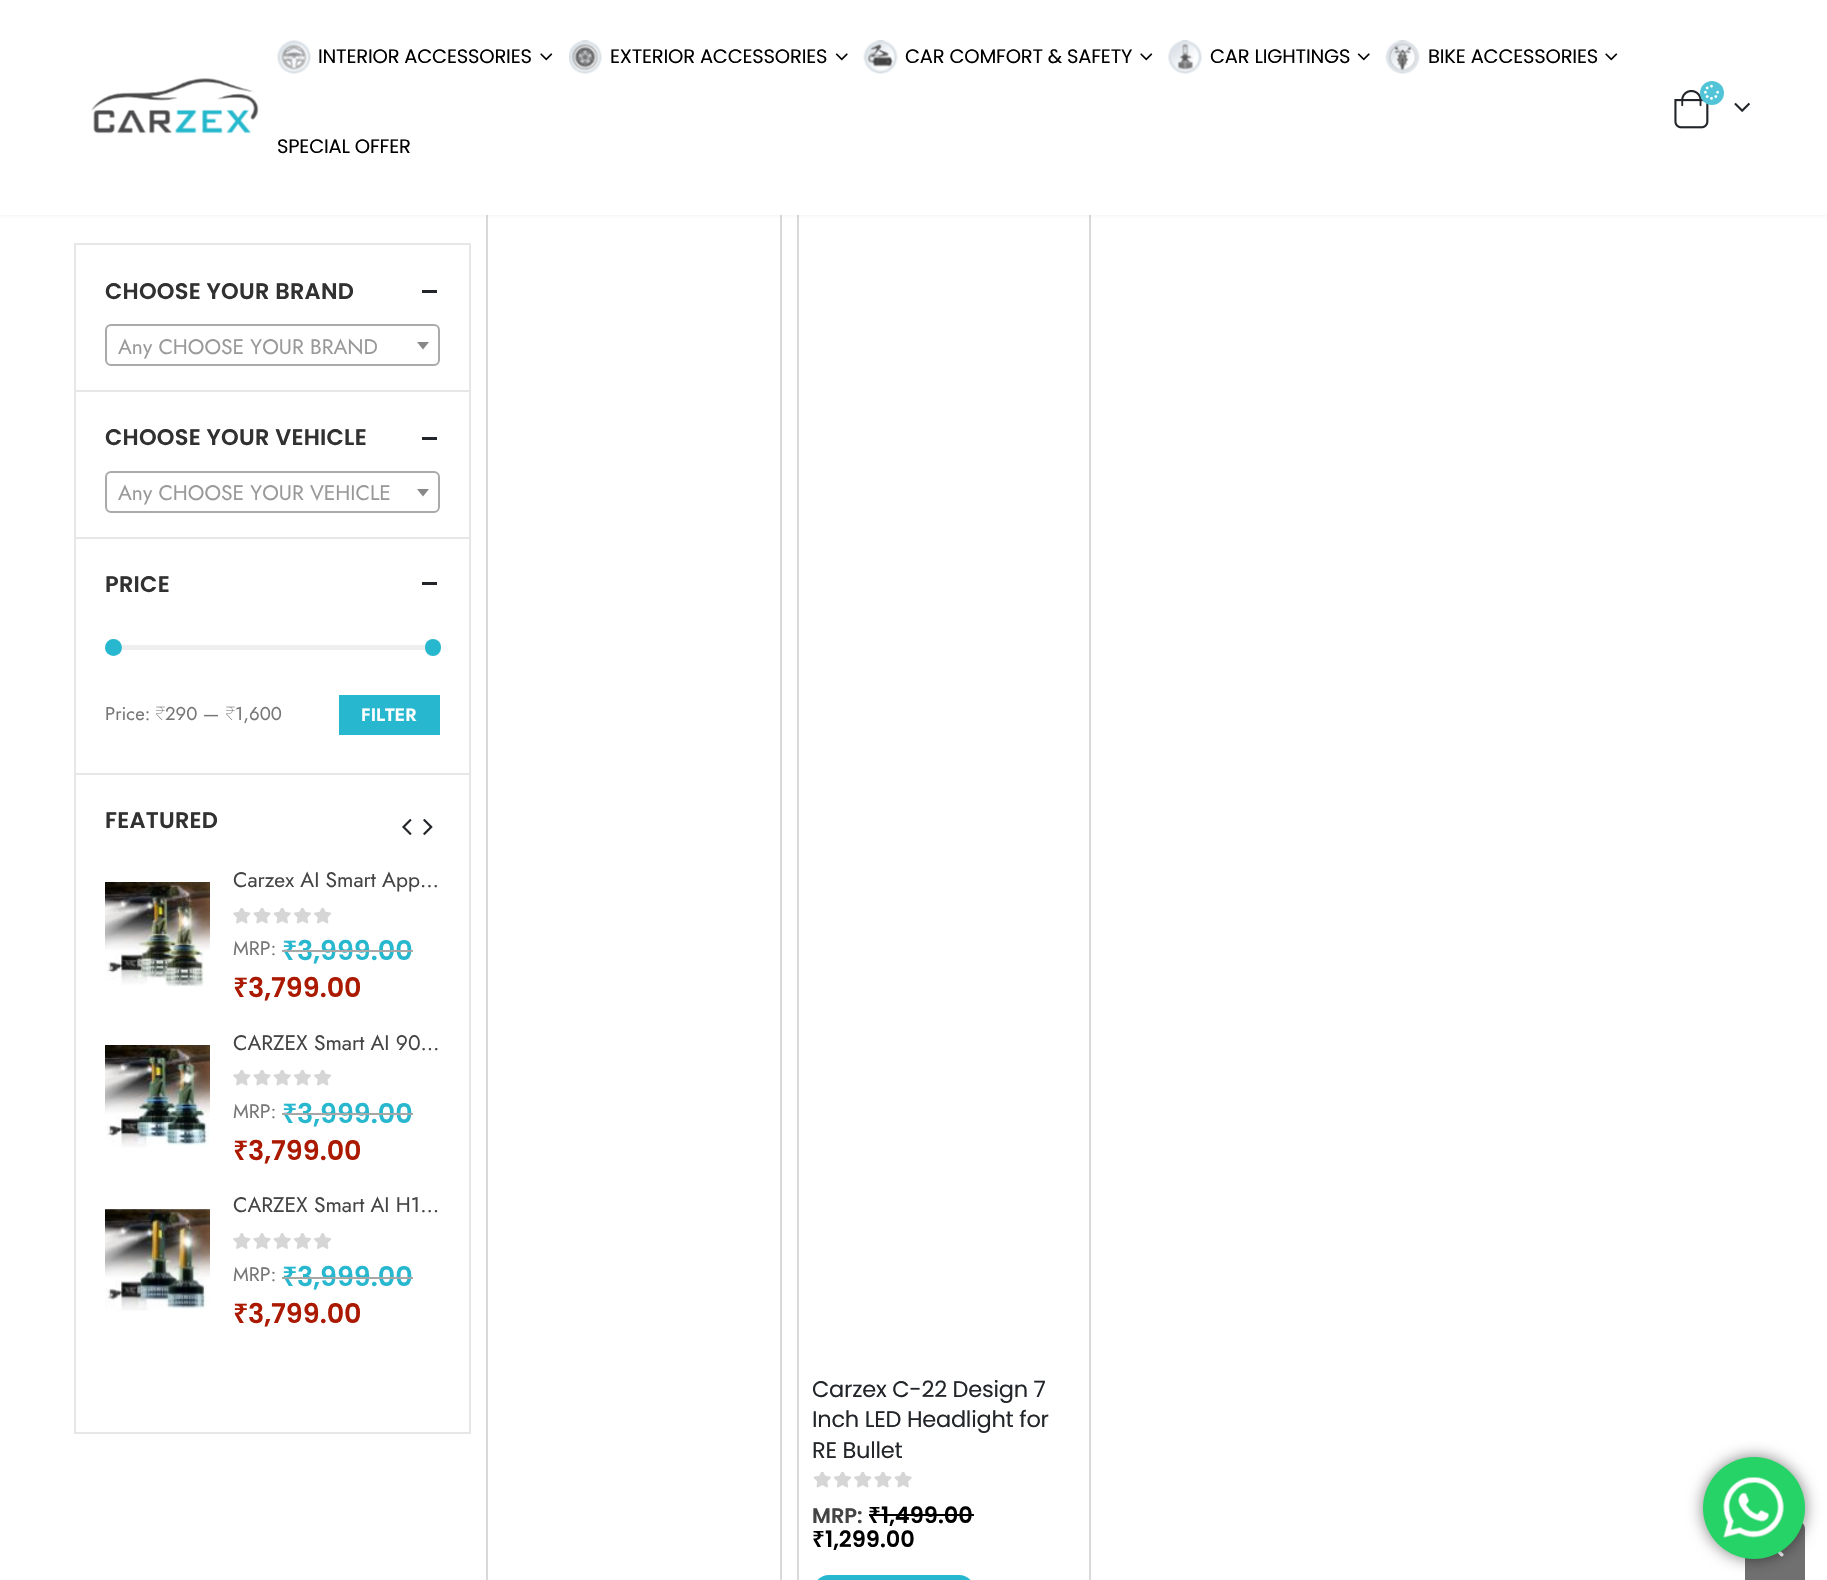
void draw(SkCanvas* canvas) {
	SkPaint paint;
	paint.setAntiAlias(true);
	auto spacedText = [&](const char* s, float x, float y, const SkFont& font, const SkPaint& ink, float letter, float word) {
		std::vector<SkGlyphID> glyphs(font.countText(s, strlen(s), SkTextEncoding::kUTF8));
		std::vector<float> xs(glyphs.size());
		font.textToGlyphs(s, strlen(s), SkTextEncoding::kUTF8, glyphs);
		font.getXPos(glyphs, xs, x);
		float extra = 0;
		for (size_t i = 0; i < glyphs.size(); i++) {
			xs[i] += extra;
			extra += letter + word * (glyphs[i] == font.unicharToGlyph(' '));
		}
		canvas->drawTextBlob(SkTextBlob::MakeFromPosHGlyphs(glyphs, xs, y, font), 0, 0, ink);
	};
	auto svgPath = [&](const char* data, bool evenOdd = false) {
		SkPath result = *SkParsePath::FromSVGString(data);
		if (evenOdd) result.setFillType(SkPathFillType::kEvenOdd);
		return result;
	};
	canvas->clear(0xffffffff);
	paint.setStroke(true);
	paint.setStrokeWidth(2);
	paint.setColor(0xffd9d9d9);
	canvas->drawRect(SkRect::MakeXYWH(487, -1, 294, 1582), paint);
	canvas->drawRect(SkRect::MakeXYWH(798, -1, 292, 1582), paint);
	paint.setStroke(false);
	paint.setColor(0x0f000000);
	paint.setMaskFilter(SkMaskFilter::MakeBlur(kNormal_SkBlurStyle, 2));
	canvas->drawRect(SkRect::MakeXYWH(0, 0, 1827, 215), paint);
	paint.setMaskFilter(nullptr);
	paint.setColor(0xffffffff);
	canvas->drawRect(SkRect::MakeXYWH(0, 0, 1827, 215), paint);
	canvas->drawImageRect(SkImages::DeferredFromEncodedData(SkData::MakeFromFileName("img1.png")), SkRect::MakeXYWH(91, 78, 168, 56), SkSamplingOptions());
	canvas->drawImageRect(SkImages::DeferredFromEncodedData(SkData::MakeFromFileName("img2.png")), SkRect::MakeXYWH(277, 40, 34, 34), SkSamplingOptions());
	SkFont f1(fontMgr->matchFamilyStyle("Poppins", SkFontStyle::Normal()), 19.5);
	f1.setSubpixel(true);
	paint.setColor(0xff000000);
	spacedText("INTERIOR ACCESSORIES", 318, 63, f1, paint, -0.2, 0);
	canvas->drawImageRect(SkImages::DeferredFromEncodedData(SkData::MakeFromFileName("img3.png")), SkRect::MakeXYWH(540, 53, 13, 8), SkSamplingOptions());
	canvas->drawImageRect(SkImages::DeferredFromEncodedData(SkData::MakeFromFileName("img4.png")), SkRect::MakeXYWH(569, 40, 33, 34), SkSamplingOptions());
	spacedText("EXTERIOR ACCESSORIES", 610, 63, f1, paint, -0.2, 0);
	canvas->drawImageRect(SkImages::DeferredFromEncodedData(SkData::MakeFromFileName("img5.png")), SkRect::MakeXYWH(835, 53, 13, 8), SkSamplingOptions());
	canvas->drawImageRect(SkImages::DeferredFromEncodedData(SkData::MakeFromFileName("img6.png")), SkRect::MakeXYWH(863, 40, 35, 34), SkSamplingOptions());
	spacedText("CAR COMFORT & SAFETY", 905, 63, f1, paint, -0.2, 0);
	canvas->drawImageRect(SkImages::DeferredFromEncodedData(SkData::MakeFromFileName("img3.png")), SkRect::MakeXYWH(1140, 53, 13, 8), SkSamplingOptions());
	canvas->drawImageRect(SkImages::DeferredFromEncodedData(SkData::MakeFromFileName("img7.png")), SkRect::MakeXYWH(1168, 40, 34, 34), SkSamplingOptions());
	spacedText("CAR LIGHTINGS", 1210, 63, f1, paint, -0.2, 0);
	canvas->drawImageRect(SkImages::DeferredFromEncodedData(SkData::MakeFromFileName("img5.png")), SkRect::MakeXYWH(1357, 53, 13, 8), SkSamplingOptions());
	canvas->drawImageRect(SkImages::DeferredFromEncodedData(SkData::MakeFromFileName("img8.png")), SkRect::MakeXYWH(1385, 40, 35, 34), SkSamplingOptions());
	spacedText("BIKE ACCESSORIES", 1428, 63, f1, paint, -0.2, 0);
	canvas->drawImageRect(SkImages::DeferredFromEncodedData(SkData::MakeFromFileName("img3.png")), SkRect::MakeXYWH(1605, 53, 13, 8), SkSamplingOptions());
	spacedText("SPECIAL OFFER", 277, 153, f1, paint, -0.2, 0);
	canvas->drawImageRect(SkImages::DeferredFromEncodedData(SkData::MakeFromFileName("img9.png")), SkRect::MakeXYWH(1674, 89, 35, 40), SkSamplingOptions());
	paint.setColor(0xff51c5d7);
	canvas->drawCircle(1712, 93, 12, paint);
	canvas->drawImageRect(SkImages::DeferredFromEncodedData(SkData::MakeFromFileName("img10.png")), SkRect::MakeXYWH(1704, 84, 15, 16), SkSamplingOptions());
	canvas->drawImageRect(SkImages::DeferredFromEncodedData(SkData::MakeFromFileName("img11.png")), SkRect::MakeXYWH(1734, 102, 16, 10), SkSamplingOptions());
	paint.setStroke(true);
	paint.setColor(0xffe7e7e7);
	canvas->drawRect(SkRect::MakeXYWH(75, 244, 395, 1189), paint);
	paint.setStroke(false);
	canvas->drawRect(SkRect::MakeXYWH(75, 390, 395, 2), paint);
	SkFont f2(fontMgr->matchFamilyStyle("Poppins", SkFontStyle(600, SkFontStyle::kNormal_Width, SkFontStyle::kUpright_Slant)), 22.5);
	f2.setSubpixel(true);
	paint.setColor(0xff313131);
	spacedText("CHOOSE YOUR BRAND", 105, 299, f2, paint, 0.25, 0);
	paint.setColor(0xff222529);
	canvas->drawRect(SkRect::MakeXYWH(422, 290, 15, 3), paint);
	paint.setStroke(true);
	paint.setColor(0xffaaaaaa);
	canvas->drawRoundRect(SkRect::MakeXYWH(106, 325, 333, 40), 5, 5, paint);
	SkFont f3(fontMgr->matchFamilyStyle("Jost", SkFontStyle::Normal()), 21);
	f3.setSubpixel(true);
	paint.setStroke(false);
	paint.setColor(0xff999999);
	canvas->drawString("Any CHOOSE YOUR BRAND", 118, 354, f3, paint);
	paint.setColor(0xff888888);
	canvas->drawPath(svgPath("M417 342H429L423 349.5Z"), paint);
	paint.setColor(0xffe7e7e7);
	canvas->drawRect(SkRect::MakeXYWH(75, 537, 395, 2), paint);
	paint.setColor(0xff313131);
	spacedText("CHOOSE YOUR VEHICLE", 105, 445, f2, paint, 0.25, 0);
	paint.setColor(0xff222529);
	canvas->drawRect(SkRect::MakeXYWH(422, 437, 15, 3), paint);
	paint.setStroke(true);
	paint.setColor(0xffaaaaaa);
	canvas->drawRoundRect(SkRect::MakeXYWH(106, 472, 333, 40), 5, 5, paint);
	paint.setStroke(false);
	paint.setColor(0xff999999);
	canvas->drawString("Any CHOOSE YOUR VEHICLE", 118, 500, f3, paint);
	paint.setColor(0xff888888);
	canvas->drawPath(svgPath("M417 489H429L423 496.5Z"), paint);
	paint.setColor(0xffe7e7e7);
	canvas->drawRect(SkRect::MakeXYWH(75, 773, 395, 2), paint);
	paint.setColor(0xff313131);
	spacedText("PRICE", 105, 592, f2, paint, 0.25, 0);
	paint.setColor(0xff222529);
	canvas->drawRect(SkRect::MakeXYWH(422, 582, 15, 3), paint);
	paint.setColor(0xffeeeeee);
	canvas->drawRect(SkRect::MakeXYWH(105, 645, 321, 5), paint);
	paint.setColor(0xff27b7ce);
	canvas->drawCircle(113.5, 647.5, 8.5, paint);
	canvas->drawRoundRect(SkRect::MakeXYWH(425, 639, 16, 17), 8, 8, paint);
	SkFont f4(fontMgr->matchFamilyStyle("Jost", SkFontStyle::Normal()), 18.5);
	f4.setSubpixel(true);
	paint.setColor(0xff777777);
	canvas->drawString("Price:", 105, 720, f4, paint);
	SkFont f5(fontMgr->matchFamilyStyle("Noto Sans", SkFontStyle(100, SkFontStyle::kNormal_Width, SkFontStyle::kUpright_Slant)), 18.5);
	f5.setSubpixel(true);
	canvas->drawString("₹", 155, 720, f5, paint);
	canvas->drawString("290 —", 165, 720, f4, paint);
	canvas->drawString("₹", 225, 720, f5, paint);
	canvas->drawString("1,600", 235, 720, f4, paint);
	paint.setColor(0xff27b7ce);
	canvas->drawRect(SkRect::MakeXYWH(339, 695, 101, 40), paint);
	SkFont f6(fontMgr->matchFamilyStyle("Jost", SkFontStyle(600, SkFontStyle::kNormal_Width, SkFontStyle::kUpright_Slant)), 18);
	f6.setSubpixel(true);
	paint.setColor(0xffffffff);
	canvas->drawString("FILTER", 361, 721, f6, paint);
	paint.setColor(0xff313131);
	spacedText("FEATURED", 105, 828, f2, paint, 0.25, 0);
	canvas->drawImageRect(SkImages::DeferredFromEncodedData(SkData::MakeFromFileName("img12.png")), SkRect::MakeXYWH(402, 819, 10, 16), SkSamplingOptions());
	canvas->drawImageRect(SkImages::DeferredFromEncodedData(SkData::MakeFromFileName("img13.png")), SkRect::MakeXYWH(423, 819, 10, 16), SkSamplingOptions());
	canvas->drawImageRect(SkImages::DeferredFromEncodedData(SkData::MakeFromFileName("img14.png")), SkRect::MakeXYWH(105, 882, 105, 105), SkSamplingOptions());
	paint.setColor(0xff444444);
	canvas->drawString("Carzex AI Smart App…", 233, 887, f3, paint);
	canvas->drawImageRect(SkImages::DeferredFromEncodedData(SkData::MakeFromFileName("img15.png")), SkRect::MakeXYWH(233, 908, 99, 16), SkSamplingOptions());
	SkFont f7(fontMgr->matchFamilyStyle("Jost", SkFontStyle::Normal()), 19.5);
	f7.setSubpixel(true);
	paint.setColor(0xff777777);
	canvas->drawString("MRP:", 233, 955, f7, paint);
	SkFont f8(fontMgr->matchFamilyStyle("Noto Sans", SkFontStyle(600, SkFontStyle::kNormal_Width, SkFontStyle::kUpright_Slant)), 27);
	f8.setSubpixel(true);
	paint.setColor(0xff27b7ce);
	canvas->drawString("₹", 282, 960, f8, paint);
	paint.setColor(0xffa7a7a7);
	canvas->drawRect(SkRect::MakeXYWH(282, 950, 15, 2), paint);
	SkFont f9(fontMgr->matchFamilyStyle("Poppins", SkFontStyle(600, SkFontStyle::kNormal_Width, SkFontStyle::kUpright_Slant)), 27);
	f9.setSubpixel(true);
	paint.setColor(0xff27b7ce);
	canvas->drawString("3,999.00", 297, 960, f9, paint);
	paint.setColor(0xffa7a7a7);
	canvas->drawRect(SkRect::MakeXYWH(297, 950, 116, 2), paint);
	paint.setColor(0xffaa1900);
	canvas->drawString("₹", 233, 997, f8, paint);
	canvas->drawString("3,799.00", 248, 997, f9, paint);
	canvas->drawImageRect(SkImages::DeferredFromEncodedData(SkData::MakeFromFileName("img16.png")), SkRect::MakeXYWH(105, 1045, 105, 103), SkSamplingOptions());
	paint.setColor(0xff444444);
	canvas->drawString("CARZEX Smart AI 90…", 233, 1050, f3, paint);
	canvas->drawImageRect(SkImages::DeferredFromEncodedData(SkData::MakeFromFileName("img15.png")), SkRect::MakeXYWH(233, 1070, 99, 16), SkSamplingOptions());
	paint.setColor(0xff777777);
	canvas->drawString("MRP:", 233, 1118, f7, paint);
	paint.setColor(0xff27b7ce);
	canvas->drawString("₹", 282, 1123, f8, paint);
	paint.setColor(0xffa7a7a7);
	canvas->drawRect(SkRect::MakeXYWH(282, 1113, 15, 2), paint);
	paint.setColor(0xff27b7ce);
	canvas->drawString("3,999.00", 297, 1123, f9, paint);
	paint.setColor(0xffa7a7a7);
	canvas->drawRect(SkRect::MakeXYWH(297, 1113, 116, 2), paint);
	paint.setColor(0xffaa1900);
	canvas->drawString("₹", 233, 1160, f8, paint);
	canvas->drawString("3,799.00", 248, 1160, f9, paint);
	canvas->drawImageRect(SkImages::DeferredFromEncodedData(SkData::MakeFromFileName("img17.png")), SkRect::MakeXYWH(105, 1209, 105, 102), SkSamplingOptions());
	paint.setColor(0xff444444);
	canvas->drawString("CARZEX Smart AI H1…", 233, 1212, f3, paint);
	canvas->drawImageRect(SkImages::DeferredFromEncodedData(SkData::MakeFromFileName("img18.png")), SkRect::MakeXYWH(233, 1233, 98, 16), SkSamplingOptions());
	paint.setColor(0xff777777);
	canvas->drawString("MRP:", 233, 1281, f7, paint);
	paint.setColor(0xff27b7ce);
	canvas->drawString("₹", 282, 1286, f8, paint);
	canvas->drawString("3,999.00", 297, 1286, f9, paint);
	paint.setColor(0xffa7a7a7);
	canvas->drawRect(SkRect::MakeXYWH(282, 1277, 15, 2), paint);
	canvas->drawRect(SkRect::MakeXYWH(297, 1277, 116, 2), paint);
	paint.setColor(0xffaa1900);
	canvas->drawString("₹", 233, 1323, f8, paint);
	canvas->drawString("3,799.00", 248, 1323, f9, paint);
	SkFont f10(fontMgr->matchFamilyStyle("Poppins", SkFontStyle::Normal()), 22.5);
	f10.setSubpixel(true);
	paint.setColor(0xff222529);
	spacedText("Carzex C-22 Design 7", 812, 1397, f10, paint, -0.25, 0);
	spacedText("Inch LED Headlight for", 812, 1427, f10, paint, -0.25, 0);
	spacedText("RE Bullet", 812, 1458, f10, paint, -0.25, 0);
	canvas->drawImageRect(SkImages::DeferredFromEncodedData(SkData::MakeFromFileName("img19.png")), SkRect::MakeXYWH(813, 1472, 99, 16), SkSamplingOptions());
	SkFont f11(fontMgr->matchFamilyStyle("Poppins", SkFontStyle(600, SkFontStyle::kNormal_Width, SkFontStyle::kUpright_Slant)), 21);
	f11.setSubpixel(true);
	paint.setColor(0xff444444);
	canvas->drawString("MRP:", 812, 1523, f11, paint);
	SkFont f12(fontMgr->matchFamilyStyle("Noto Sans", SkFontStyle(600, SkFontStyle::kNormal_Width, SkFontStyle::kUpright_Slant)), 22.5);
	f12.setSubpixel(true);
	paint.setColor(0xff000000);
	canvas->drawString("₹", 868, 1523, f12, paint);
	canvas->drawRect(SkRect::MakeXYWH(869, 1514, 12, 2), paint);
	canvas->drawRect(SkRect::MakeXYWH(881, 1514, 93, 2), paint);
	canvas->drawString("1,499.00", 881, 1523, f2, paint);
	canvas->drawString("₹", 812, 1547, f12, paint);
	canvas->drawString("1,299.00", 825, 1547, f2, paint);
	paint.setColor(0xff27b7ce);
	canvas->drawRoundRect(SkRect::MakeXYWH(813, 1575, 162, 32), 27, 27, paint);
	paint.setColor(0xff707070);
	canvas->drawPath(svgPath("M1753 1521H1797C1801.5 1521 1805 1524.5 1805 1529V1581H1745V1529C1745 1524.5 1748.5 1521 1753 1521Z"), paint);
	canvas->drawImageRect(SkImages::DeferredFromEncodedData(SkData::MakeFromFileName("img21.png")), SkRect::MakeXYWH(1768, 1551, 16, 6), SkSamplingOptions());
	paint.setColor(0x80000000);
	paint.setMaskFilter(SkMaskFilter::MakeBlur(kNormal_SkBlurStyle, 8));
	canvas->drawRoundRect(SkRect::MakeXYWH(1703, 1457, 102, 102), 51, 51, paint);
	paint.setMaskFilter(nullptr);
	paint.setColor(0xff25d366);
	canvas->drawCircle(1754, 1508, 51, paint);
	canvas->drawImageRect(SkImages::DeferredFromEncodedData(SkData::MakeFromFileName("img20.png")), SkRect::MakeXYWH(1723, 1477, 61, 61), SkSamplingOptions());
}
